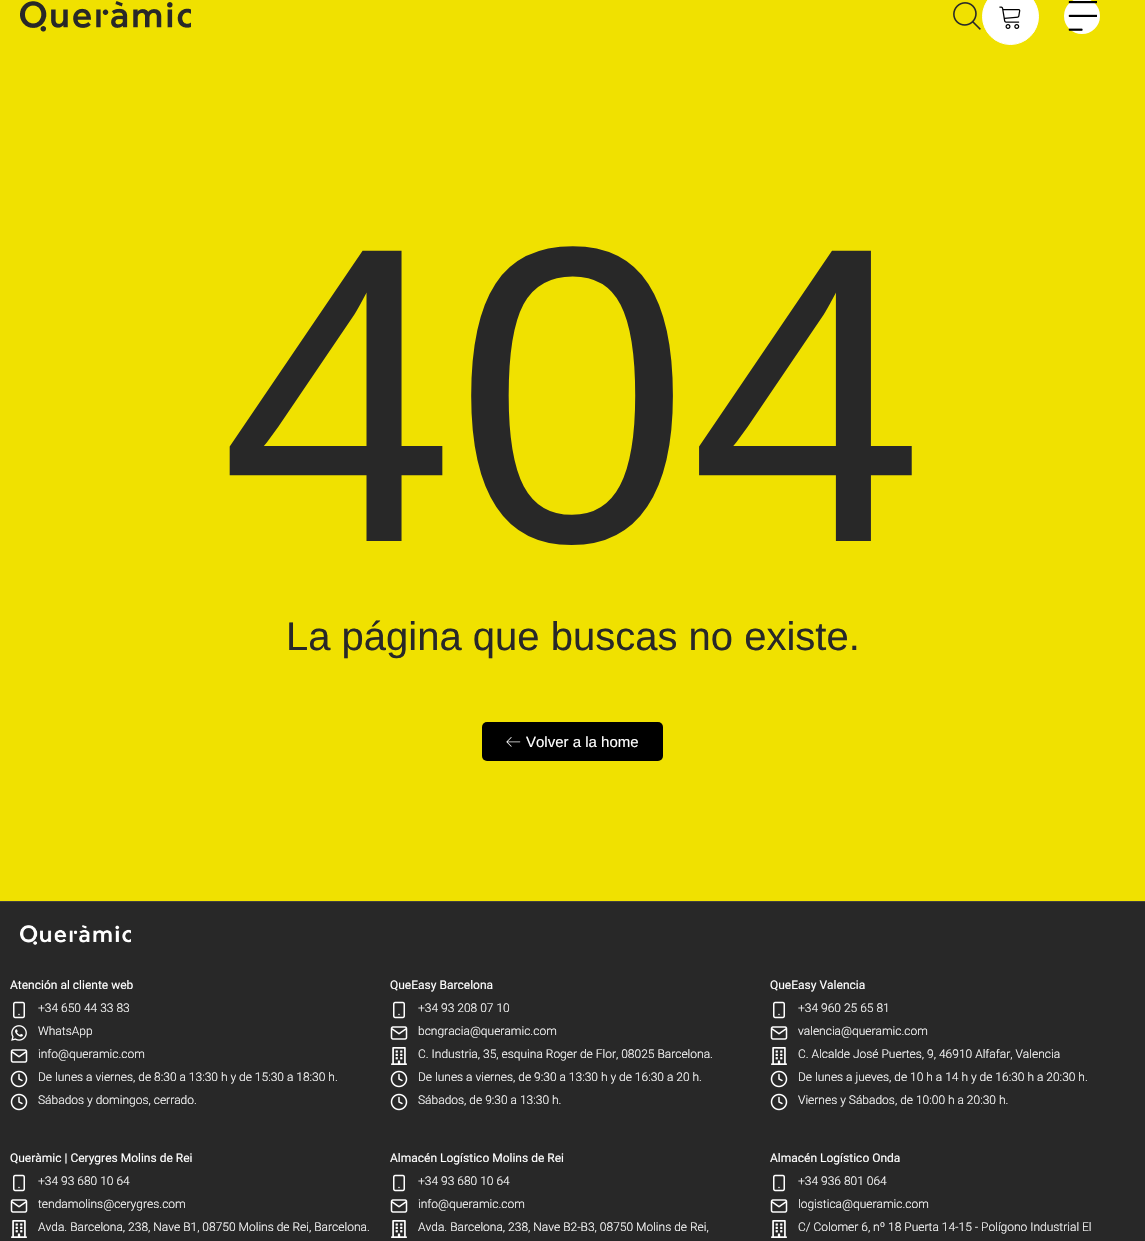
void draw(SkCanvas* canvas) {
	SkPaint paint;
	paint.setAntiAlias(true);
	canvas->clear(0xfff0e100);
	canvas->drawImageRect(SkImages::DeferredFromEncodedData(SkData::MakeFromFileName("img1.png")), SkRect::MakeXYWH(20, 1, 171, 31), SkSamplingOptions());
	canvas->drawImageRect(SkImages::DeferredFromEncodedData(SkData::MakeFromFileName("img2.png")), SkRect::MakeXYWH(953, 2, 28, 28), SkSamplingOptions());
	paint.setColor(0xffffffff);
	canvas->drawCircle(1010.5, 16.5, 28, paint);
	paint.setStroke(true);
	paint.setStrokeWidth(1);
	canvas->drawCircle(1010.5, 16.5, 28, paint);
	canvas->drawImageRect(SkImages::DeferredFromEncodedData(SkData::MakeFromFileName("img3.png")), SkRect::MakeXYWH(999, 6, 22, 23), SkSamplingOptions());
	paint.setStroke(false);
	canvas->drawCircle(1082, 16, 16.5, paint);
	paint.setStroke(true);
	paint.setStrokeWidth(3);
	canvas->drawCircle(1082, 16, 16.5, paint);
	canvas->drawImageRect(SkImages::DeferredFromEncodedData(SkData::MakeFromFileName("img4.png")), SkRect::MakeXYWH(1068, 1, 29, 30), SkSamplingOptions());
	SkFont f1(fontMgr->matchFamilyStyle("Liberation Sans", SkFontStyle::Normal()), 422);
	f1.setSubpixel(true);
	paint.setStroke(false);
	paint.setColor(0xff282828);
	canvas->drawString("404", 220, 541, f1, paint);
	SkFont f2(fontMgr->matchFamilyStyle("Liberation Sans", SkFontStyle::Normal()), 40);
	f2.setSubpixel(true);
	canvas->drawString("La página que buscas no existe.", 286, 650, f2, paint);
	paint.setColor(0xff000000);
	canvas->drawRoundRect(SkRect::MakeXYWH(482, 722, 181, 39), 5, 5, paint);
	canvas->drawImageRect(SkImages::DeferredFromEncodedData(SkData::MakeFromFileName("img5.png")), SkRect::MakeXYWH(506, 737, 15, 10), SkSamplingOptions());
	SkFont f3(fontMgr->matchFamilyStyle("Liberation Sans", SkFontStyle::Normal()), 15);
	f3.setSubpixel(true);
	paint.setColor(0xffffffff);
	canvas->drawString("Volver a la home", 526, 747, f3, paint);
	paint.setColor(0xff282828);
	canvas->drawRect(SkRect::MakeXYWH(0, 902, 1145, 339), paint);
	paint.setColor(0xff404040);
	canvas->drawRect(SkRect::MakeXYWH(0, 901, 1145, 1), paint);
	canvas->drawImageRect(SkImages::DeferredFromEncodedData(SkData::MakeFromFileName("img6.png")), SkRect::MakeXYWH(20, 925, 111, 20), SkSamplingOptions());
	SkFont f4(fontMgr->matchFamilyStyle("Roboto", SkFontStyle::Normal()), 12);
	f4.setSubpixel(true);
	paint.setColor(0xffffffff);
	canvas->drawString("Atención al cliente web", 10, 989, f4, paint);
	canvas->drawImageRect(SkImages::DeferredFromEncodedData(SkData::MakeFromFileName("img7.png")), SkRect::MakeXYWH(13, 1001, 12, 18), SkSamplingOptions());
	SkFont f5(fontMgr->matchFamilyStyle("Roboto", SkFontStyle(300, SkFontStyle::kNormal_Width, SkFontStyle::kUpright_Slant)), 12);
	f5.setSubpixel(true);
	canvas->drawString("+34 650 44 33 83", 38, 1012, f5, paint);
	canvas->drawImageRect(SkImages::DeferredFromEncodedData(SkData::MakeFromFileName("img8.png")), SkRect::MakeXYWH(11, 1025, 16, 16), SkSamplingOptions());
	canvas->drawString("WhatsApp", 38, 1035, f5, paint);
	canvas->drawImageRect(SkImages::DeferredFromEncodedData(SkData::MakeFromFileName("img9.png")), SkRect::MakeXYWH(10, 1049, 18, 14), SkSamplingOptions());
	canvas->drawString("info@queramic.com", 38, 1058, f5, paint);
	canvas->drawImageRect(SkImages::DeferredFromEncodedData(SkData::MakeFromFileName("img10.png")), SkRect::MakeXYWH(10, 1070, 18, 18), SkSamplingOptions());
	canvas->drawString("De lunes a viernes, de 8:30 a 13:30 h y de 15:30 a 18:30 h.", 38, 1081, f5, paint);
	canvas->drawImageRect(SkImages::DeferredFromEncodedData(SkData::MakeFromFileName("img10.png")), SkRect::MakeXYWH(10, 1093, 18, 18), SkSamplingOptions());
	canvas->drawString("Sábados y domingos, cerrado.", 38, 1104, f5, paint);
	canvas->drawString("QueEasy Barcelona", 390, 989, f4, paint);
	canvas->drawImageRect(SkImages::DeferredFromEncodedData(SkData::MakeFromFileName("img7.png")), SkRect::MakeXYWH(393, 1001, 12, 18), SkSamplingOptions());
	canvas->drawString("+34 93 208 07 10", 418, 1012, f5, paint);
	canvas->drawImageRect(SkImages::DeferredFromEncodedData(SkData::MakeFromFileName("img9.png")), SkRect::MakeXYWH(390, 1026, 18, 14), SkSamplingOptions());
	canvas->drawString("bcngracia@queramic.com", 418, 1035, f5, paint);
	canvas->drawImageRect(SkImages::DeferredFromEncodedData(SkData::MakeFromFileName("img11.png")), SkRect::MakeXYWH(391, 1047, 16, 18), SkSamplingOptions());
	canvas->drawString("C. Industria, 35, esquina Roger de Flor, 08025 Barcelona.", 418, 1058, f5, paint);
	canvas->drawImageRect(SkImages::DeferredFromEncodedData(SkData::MakeFromFileName("img10.png")), SkRect::MakeXYWH(390, 1070, 18, 18), SkSamplingOptions());
	canvas->drawString("De lunes a viernes, de 9:30 a 13:30 h y de 16:30 a 20 h.", 418, 1081, f5, paint);
	canvas->drawImageRect(SkImages::DeferredFromEncodedData(SkData::MakeFromFileName("img10.png")), SkRect::MakeXYWH(390, 1093, 18, 18), SkSamplingOptions());
	canvas->drawString("Sábados, de 9:30 a 13:30 h.", 418, 1104, f5, paint);
	canvas->drawString("QueEasy Valencia", 770, 989, f4, paint);
	canvas->drawImageRect(SkImages::DeferredFromEncodedData(SkData::MakeFromFileName("img7.png")), SkRect::MakeXYWH(773, 1001, 12, 18), SkSamplingOptions());
	canvas->drawString("+34 960 25 65 81", 798, 1012, f5, paint);
	canvas->drawImageRect(SkImages::DeferredFromEncodedData(SkData::MakeFromFileName("img9.png")), SkRect::MakeXYWH(770, 1026, 18, 14), SkSamplingOptions());
	canvas->drawString("valencia@queramic.com", 798, 1035, f5, paint);
	canvas->drawImageRect(SkImages::DeferredFromEncodedData(SkData::MakeFromFileName("img11.png")), SkRect::MakeXYWH(771, 1047, 16, 18), SkSamplingOptions());
	canvas->drawString("C. Alcalde José Puertes, 9, 46910 Alfafar, Valencia", 798, 1058, f5, paint);
	canvas->drawImageRect(SkImages::DeferredFromEncodedData(SkData::MakeFromFileName("img10.png")), SkRect::MakeXYWH(770, 1070, 18, 18), SkSamplingOptions());
	canvas->drawString("De lunes a jueves, de 10 h a 14 h y de 16:30 h a 20:30 h.", 798, 1081, f5, paint);
	canvas->drawImageRect(SkImages::DeferredFromEncodedData(SkData::MakeFromFileName("img10.png")), SkRect::MakeXYWH(770, 1093, 18, 18), SkSamplingOptions());
	canvas->drawString("Viernes y Sábados, de 10:00 h a 20:30 h.", 798, 1104, f5, paint);
	canvas->drawString("Queràmic | Cerygres Molins de Rei", 10, 1162, f4, paint);
	canvas->drawImageRect(SkImages::DeferredFromEncodedData(SkData::MakeFromFileName("img7.png")), SkRect::MakeXYWH(13, 1174, 12, 18), SkSamplingOptions());
	canvas->drawString("+34 93 680 10 64", 38, 1185, f5, paint);
	canvas->drawImageRect(SkImages::DeferredFromEncodedData(SkData::MakeFromFileName("img9.png")), SkRect::MakeXYWH(10, 1199, 18, 14), SkSamplingOptions());
	canvas->drawString("tendamolins@cerygres.com", 38, 1208, f5, paint);
	canvas->drawImageRect(SkImages::DeferredFromEncodedData(SkData::MakeFromFileName("img11.png")), SkRect::MakeXYWH(11, 1220, 16, 18), SkSamplingOptions());
	canvas->drawString("Avda. Barcelona, 238, Nave B1, 08750 Molins de Rei, Barcelona.", 38, 1231, f5, paint);
	canvas->drawString("Almacén Logístico Molins de Rei", 390, 1162, f4, paint);
	canvas->drawImageRect(SkImages::DeferredFromEncodedData(SkData::MakeFromFileName("img7.png")), SkRect::MakeXYWH(393, 1174, 12, 18), SkSamplingOptions());
	canvas->drawString("+34 93 680 10 64", 418, 1185, f5, paint);
	canvas->drawImageRect(SkImages::DeferredFromEncodedData(SkData::MakeFromFileName("img9.png")), SkRect::MakeXYWH(390, 1199, 18, 14), SkSamplingOptions());
	canvas->drawString("info@queramic.com", 418, 1208, f5, paint);
	canvas->drawImageRect(SkImages::DeferredFromEncodedData(SkData::MakeFromFileName("img11.png")), SkRect::MakeXYWH(391, 1220, 16, 18), SkSamplingOptions());
	canvas->drawString("Avda. Barcelona, 238, Nave B2-B3, 08750 Molins de Rei,", 418, 1231, f5, paint);
	canvas->drawString("Almacén Logístico Onda", 770, 1162, f4, paint);
	canvas->drawImageRect(SkImages::DeferredFromEncodedData(SkData::MakeFromFileName("img7.png")), SkRect::MakeXYWH(773, 1174, 12, 18), SkSamplingOptions());
	canvas->drawString("+34 936 801 064", 798, 1185, f5, paint);
	canvas->drawImageRect(SkImages::DeferredFromEncodedData(SkData::MakeFromFileName("img9.png")), SkRect::MakeXYWH(770, 1199, 18, 14), SkSamplingOptions());
	canvas->drawString("logistica@queramic.com", 798, 1208, f5, paint);
	canvas->drawImageRect(SkImages::DeferredFromEncodedData(SkData::MakeFromFileName("img11.png")), SkRect::MakeXYWH(771, 1220, 16, 18), SkSamplingOptions());
	canvas->drawString("C/ Colomer 6, nº 18 Puerta 14-15 - Polígono Industrial El", 798, 1231, f5, paint);
}
